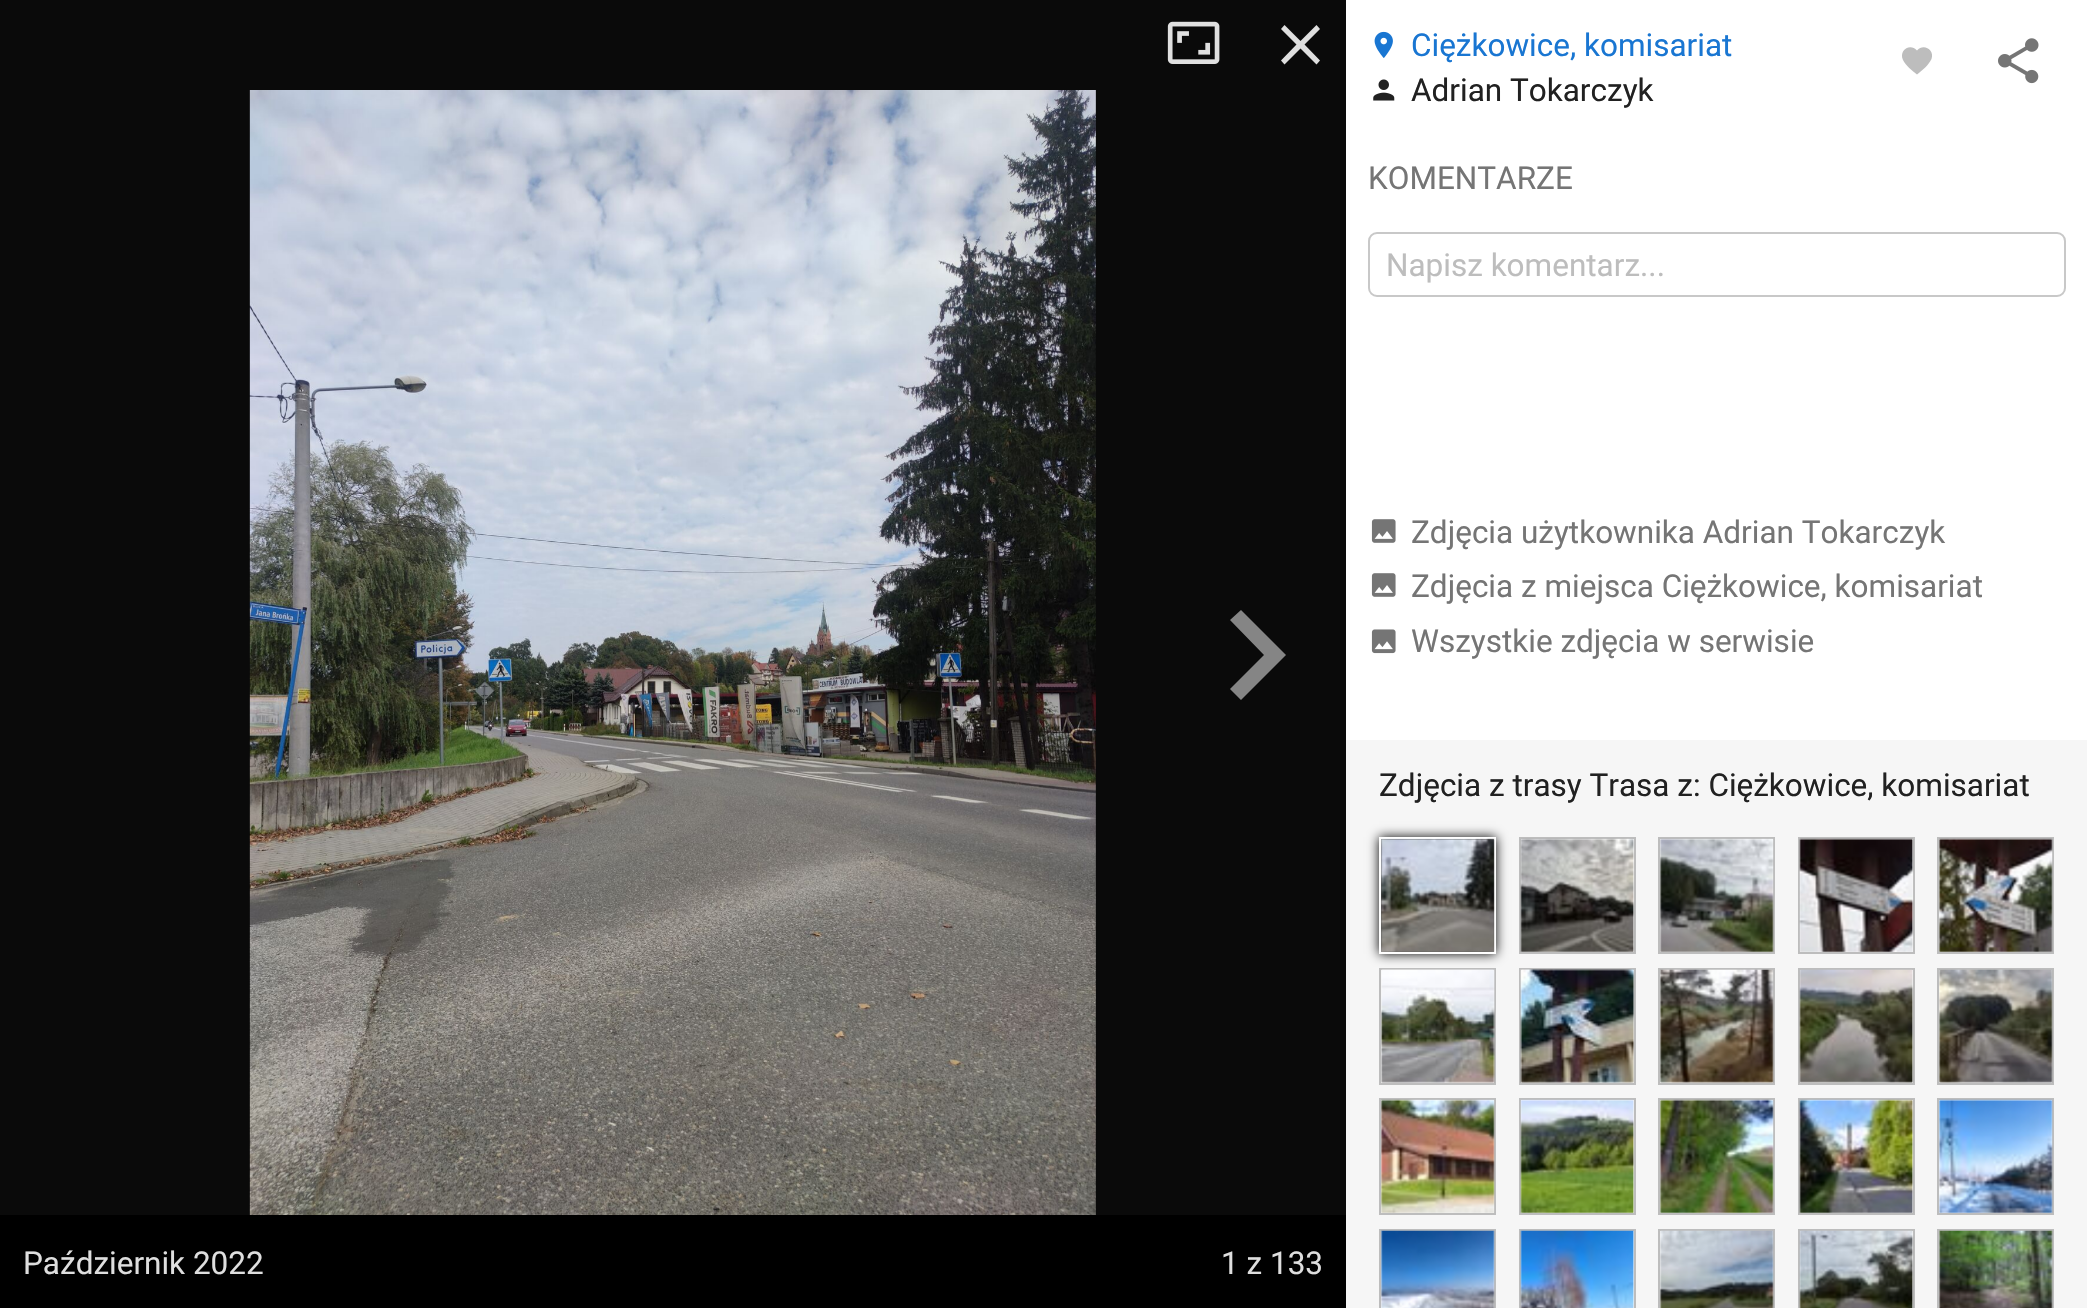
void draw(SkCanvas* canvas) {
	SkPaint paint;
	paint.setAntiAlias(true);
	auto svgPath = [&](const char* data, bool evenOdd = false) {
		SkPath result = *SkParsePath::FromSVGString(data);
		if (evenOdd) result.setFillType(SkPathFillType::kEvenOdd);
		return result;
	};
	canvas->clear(0xff0a0a0a);
	paint.setColor(0xffffffff);
	canvas->drawRect(SkRect::MakeXYWH(1346, 0, 741, 740), paint);
	canvas->drawImageRect(SkImages::DeferredFromEncodedData(SkData::MakeFromFileName("img1.png")), SkRect::MakeXYWH(1374, 31, 19, 27), SkSamplingOptions());
	SkFont f1(fontMgr->matchFamilyStyle("Roboto", SkFontStyle::Normal()), 31.5);
	f1.setSubpixel(true);
	paint.setColor(0xff1976d2);
	canvas->drawString("Ciężkowice, komisariat", 1411, 56, f1, paint);
	canvas->drawImageRect(SkImages::DeferredFromEncodedData(SkData::MakeFromFileName("img2.png")), SkRect::MakeXYWH(1373, 79, 22, 22), SkSamplingOptions());
	paint.setColor(0xff212121);
	canvas->drawString("Adrian Tokarczyk", 1411, 101, f1, paint);
	paint.setColor(0xffbdbdbd);
	canvas->drawPath(svgPath("M1917 74.5C1912.5 71 1905.5 65.5 1903 60C1898.5 50.5 1910 42.5 1917 50.5C1923.5 43 1935 50 1931.5 59C1928.5 65.5 1922 70.5 1917 74.5Z"), paint);
	canvas->drawImageRect(SkImages::DeferredFromEncodedData(SkData::MakeFromFileName("img3.png")), SkRect::MakeXYWH(1998, 38, 41, 46), SkSamplingOptions());
	paint.setColor(0xff757575);
	canvas->drawString("KOMENTARZE", 1368, 189, f1, paint);
	paint.setStroke(true);
	paint.setStrokeWidth(2);
	paint.setColor(0xffc8c8c8);
	canvas->drawRoundRect(SkRect::MakeXYWH(1369, 233, 696, 63), 8, 8, paint);
	paint.setStroke(false);
	paint.setColor(0xffbdbdbd);
	canvas->drawString("Napisz komentarz...", 1386, 276, f1, paint);
	canvas->drawImageRect(SkImages::DeferredFromEncodedData(SkData::MakeFromFileName("img4.png")), SkRect::MakeXYWH(1371, 519, 25, 24), SkSamplingOptions());
	paint.setColor(0xff757575);
	canvas->drawString("Zdjęcia użytkownika Adrian Tokarczyk", 1411, 543, f1, paint);
	canvas->drawImageRect(SkImages::DeferredFromEncodedData(SkData::MakeFromFileName("img4.png")), SkRect::MakeXYWH(1371, 573, 25, 24), SkSamplingOptions());
	canvas->drawString("Zdjęcia z miejsca Ciężkowice, komisariat", 1411, 597, f1, paint);
	canvas->drawImageRect(SkImages::DeferredFromEncodedData(SkData::MakeFromFileName("img5.png")), SkRect::MakeXYWH(1371, 629, 25, 25), SkSamplingOptions());
	canvas->drawString("Wszystkie zdjęcia w serwisie", 1411, 652, f1, paint);
	paint.setColor(0xfff6f6f6);
	canvas->drawRect(SkRect::MakeXYWH(1346, 740, 741, 568), paint);
	paint.setColor(0xff212121);
	canvas->drawString("Zdjęcia z trasy Trasa z: Ciężkowice, komisariat", 1379, 796, f1, paint);
	paint.setColor(0xff000000);
	paint.setMaskFilter(SkMaskFilter::MakeBlur(kNormal_SkBlurStyle, 5.5));
	canvas->drawRect(SkRect::MakeXYWH(1379, 837, 117, 117), paint);
	paint.setMaskFilter(nullptr);
	paint.setStroke(true);
	paint.setColor(0xffffffff);
	canvas->drawRect(SkRect::MakeXYWH(1380, 838, 115, 115), paint);
	canvas->drawImageRect(SkImages::DeferredFromEncodedData(SkData::MakeFromFileName("img6.png")), SkRect::MakeXYWH(1381, 838, 114, 114), SkSamplingOptions());
	paint.setColor(0xffbdbdbd);
	canvas->drawRect(SkRect::MakeXYWH(1520, 838, 115, 115), paint);
	canvas->drawImageRect(SkImages::DeferredFromEncodedData(SkData::MakeFromFileName("img7.png")), SkRect::MakeXYWH(1520, 838, 115, 114), SkSamplingOptions());
	canvas->drawRect(SkRect::MakeXYWH(1659, 838, 115, 115), paint);
	canvas->drawImageRect(SkImages::DeferredFromEncodedData(SkData::MakeFromFileName("img8.png")), SkRect::MakeXYWH(1660, 838, 114, 114), SkSamplingOptions());
	canvas->drawRect(SkRect::MakeXYWH(1799, 838, 115, 115), paint);
	canvas->drawImageRect(SkImages::DeferredFromEncodedData(SkData::MakeFromFileName("img9.png")), SkRect::MakeXYWH(1799, 838, 115, 114), SkSamplingOptions());
	canvas->drawRect(SkRect::MakeXYWH(1938, 838, 115, 115), paint);
	canvas->drawImageRect(SkImages::DeferredFromEncodedData(SkData::MakeFromFileName("img10.png")), SkRect::MakeXYWH(1939, 838, 114, 114), SkSamplingOptions());
	canvas->drawRect(SkRect::MakeXYWH(1380, 969, 115, 115), paint);
	canvas->drawImageRect(SkImages::DeferredFromEncodedData(SkData::MakeFromFileName("img11.png")), SkRect::MakeXYWH(1381, 969, 114, 114), SkSamplingOptions());
	canvas->drawRect(SkRect::MakeXYWH(1520, 969, 115, 115), paint);
	canvas->drawImageRect(SkImages::DeferredFromEncodedData(SkData::MakeFromFileName("img12.png")), SkRect::MakeXYWH(1520, 969, 115, 114), SkSamplingOptions());
	canvas->drawRect(SkRect::MakeXYWH(1659, 969, 115, 115), paint);
	canvas->drawImageRect(SkImages::DeferredFromEncodedData(SkData::MakeFromFileName("img13.png")), SkRect::MakeXYWH(1660, 969, 114, 114), SkSamplingOptions());
	canvas->drawRect(SkRect::MakeXYWH(1799, 969, 115, 115), paint);
	canvas->drawImageRect(SkImages::DeferredFromEncodedData(SkData::MakeFromFileName("img14.png")), SkRect::MakeXYWH(1799, 969, 115, 114), SkSamplingOptions());
	canvas->drawRect(SkRect::MakeXYWH(1938, 969, 115, 115), paint);
	canvas->drawImageRect(SkImages::DeferredFromEncodedData(SkData::MakeFromFileName("img15.png")), SkRect::MakeXYWH(1939, 969, 114, 114), SkSamplingOptions());
	canvas->drawRect(SkRect::MakeXYWH(1380, 1099, 115, 115), paint);
	canvas->drawImageRect(SkImages::DeferredFromEncodedData(SkData::MakeFromFileName("img16.png")), SkRect::MakeXYWH(1381, 1099, 114, 114), SkSamplingOptions());
	canvas->drawRect(SkRect::MakeXYWH(1520, 1099, 115, 115), paint);
	canvas->drawImageRect(SkImages::DeferredFromEncodedData(SkData::MakeFromFileName("img17.png")), SkRect::MakeXYWH(1520, 1099, 114, 114), SkSamplingOptions());
	canvas->drawRect(SkRect::MakeXYWH(1659, 1099, 115, 115), paint);
	canvas->drawImageRect(SkImages::DeferredFromEncodedData(SkData::MakeFromFileName("img18.png")), SkRect::MakeXYWH(1660, 1099, 114, 114), SkSamplingOptions());
	canvas->drawRect(SkRect::MakeXYWH(1799, 1099, 115, 115), paint);
	canvas->drawImageRect(SkImages::DeferredFromEncodedData(SkData::MakeFromFileName("img19.png")), SkRect::MakeXYWH(1799, 1099, 115, 114), SkSamplingOptions());
	canvas->drawRect(SkRect::MakeXYWH(1938, 1099, 115, 115), paint);
	canvas->drawImageRect(SkImages::DeferredFromEncodedData(SkData::MakeFromFileName("img20.png")), SkRect::MakeXYWH(1939, 1099, 114, 114), SkSamplingOptions());
	canvas->drawRect(SkRect::MakeXYWH(1380, 1230, 115, 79), paint);
	canvas->drawImageRect(SkImages::DeferredFromEncodedData(SkData::MakeFromFileName("img21.png")), SkRect::MakeXYWH(1381, 1230, 114, 78), SkSamplingOptions());
	canvas->drawRect(SkRect::MakeXYWH(1520, 1230, 115, 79), paint);
	canvas->drawImageRect(SkImages::DeferredFromEncodedData(SkData::MakeFromFileName("img22.png")), SkRect::MakeXYWH(1520, 1230, 114, 78), SkSamplingOptions());
	canvas->drawRect(SkRect::MakeXYWH(1659, 1230, 115, 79), paint);
	canvas->drawImageRect(SkImages::DeferredFromEncodedData(SkData::MakeFromFileName("img23.png")), SkRect::MakeXYWH(1660, 1230, 114, 78), SkSamplingOptions());
	canvas->drawRect(SkRect::MakeXYWH(1799, 1230, 115, 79), paint);
	canvas->drawImageRect(SkImages::DeferredFromEncodedData(SkData::MakeFromFileName("img24.png")), SkRect::MakeXYWH(1799, 1230, 115, 78), SkSamplingOptions());
	canvas->drawRect(SkRect::MakeXYWH(1938, 1230, 115, 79), paint);
	canvas->drawImageRect(SkImages::DeferredFromEncodedData(SkData::MakeFromFileName("img25.png")), SkRect::MakeXYWH(1939, 1230, 114, 78), SkSamplingOptions());
	canvas->drawImageRect(SkImages::DeferredFromEncodedData(SkData::MakeFromFileName("img26.png")), SkRect::MakeXYWH(1167, 21, 53, 43), SkSamplingOptions());
	paint.setStroke(false);
	paint.setColor(0xffdfdfdf);
	canvas->drawPath(svgPath("M1320 29L1316.5 25L1300.5 41L1284.5 25L1281 29L1296.5 44.5L1281 60.5L1284.5 64.5L1300.5 48.5L1316.5 64.5L1320 60.5L1304.5 44.5Z"), paint);
	canvas->drawImageRect(SkImages::DeferredFromEncodedData(SkData::MakeFromFileName("img27.png")), SkRect::MakeXYWH(249, 90, 847, 1125), SkSamplingOptions());
	paint.setColor(0xff858585);
	canvas->drawPath(svgPath("M1241 610L1230 620L1264 655L1230 689L1241 700L1286 655Z"), paint);
	paint.setColor(0xff000000);
	canvas->drawRect(SkRect::MakeXYWH(0, 1215, 1346, 93), paint);
	paint.setColor(0xffdedede);
	canvas->drawString("Październik 2022", 23, 1274, f1, paint);
	canvas->drawString("1 z 133", 1221, 1274, f1, paint);
}
